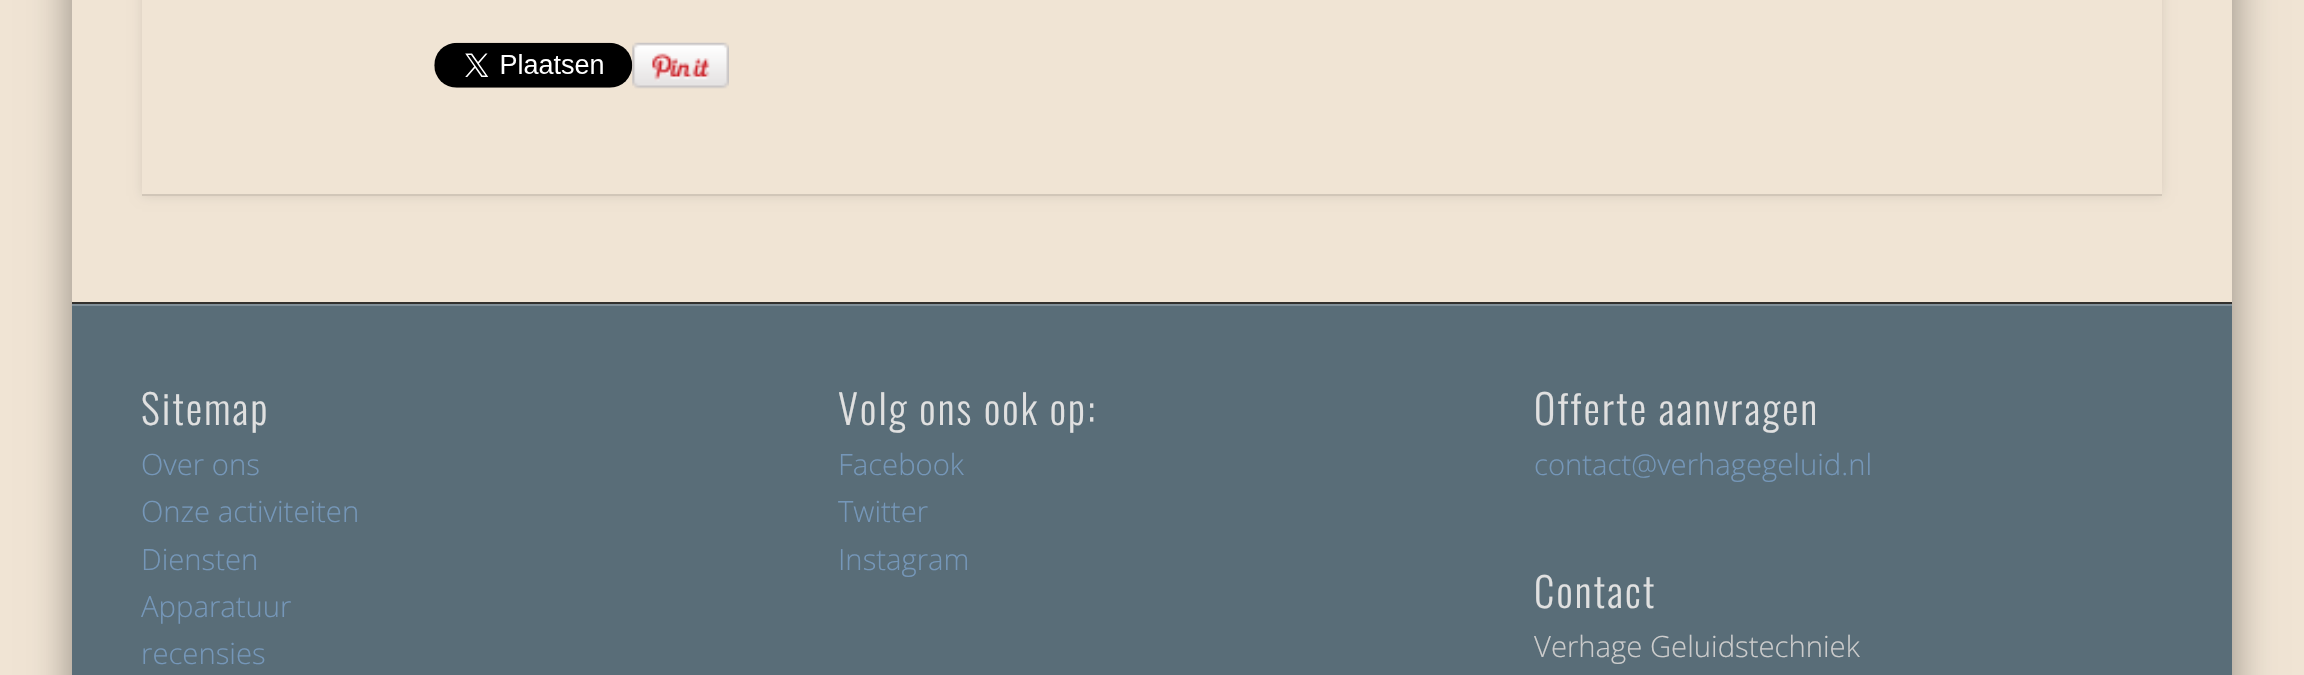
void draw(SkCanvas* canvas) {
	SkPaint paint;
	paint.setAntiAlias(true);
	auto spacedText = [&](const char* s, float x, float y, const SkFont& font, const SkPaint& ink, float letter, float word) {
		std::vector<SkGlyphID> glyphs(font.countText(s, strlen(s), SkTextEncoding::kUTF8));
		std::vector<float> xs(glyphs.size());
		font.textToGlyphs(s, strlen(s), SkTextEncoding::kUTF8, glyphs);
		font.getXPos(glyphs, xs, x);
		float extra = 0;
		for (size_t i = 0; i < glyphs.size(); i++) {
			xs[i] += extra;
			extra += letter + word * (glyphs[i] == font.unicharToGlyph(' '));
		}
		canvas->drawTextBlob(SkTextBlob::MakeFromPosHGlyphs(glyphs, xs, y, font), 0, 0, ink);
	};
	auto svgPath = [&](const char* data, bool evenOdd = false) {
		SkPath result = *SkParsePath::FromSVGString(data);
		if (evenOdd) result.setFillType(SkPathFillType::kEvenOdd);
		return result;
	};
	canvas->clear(0xfff0e4d4);
	canvas->save();
	canvas->clipPath(svgPath("M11 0H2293V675H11ZM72-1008H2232V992H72Z", true), true);
	paint.setColor(0x66000000);
	paint.setMaskFilter(SkMaskFilter::MakeBlur(kNormal_SkBlurStyle, 20));
	canvas->drawRect(SkRect::MakeXYWH(72, -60, 2160, 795), paint);
	paint.setMaskFilter(nullptr);
	canvas->restore();
	paint.setColor(0x1a000000);
	paint.setMaskFilter(SkMaskFilter::MakeBlur(kNormal_SkBlurStyle, 5.5));
	canvas->drawRect(SkRect::MakeXYWH(142, -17, 2020, 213), paint);
	paint.setMaskFilter(nullptr);
	paint.setColor(0xfff0e4d4);
	canvas->drawRect(SkRect::MakeXYWH(142, 0, 2020, 194), paint);
	paint.setColor(0xffd1c6b8);
	canvas->drawRect(SkRect::MakeXYWH(142, 194, 2020, 2), paint);
	canvas->drawImageRect(SkImages::DeferredFromEncodedData(SkData::MakeFromFileName("img2.png")), SkRect::MakeXYWH(632, 42, 97, 47), SkSamplingOptions());
	canvas->drawImageRect(SkImages::DeferredFromEncodedData(SkData::MakeFromFileName("img1.png")), SkRect::MakeXYWH(434, 42, 199, 46), SkSamplingOptions());
	paint.setColor(0xff32302d);
	canvas->drawRect(SkRect::MakeXYWH(72, 302, 2160, 2), paint);
	paint.setColor(0xff596d78);
	canvas->drawRect(SkRect::MakeXYWH(72, 306, 2160, 369), paint);
	paint.setColor(0xff808f98);
	canvas->drawRect(SkRect::MakeXYWH(72, 304, 2160, 2), paint);
	SkFont f1(fontMgr->matchFamilyStyle("Oswald", SkFontStyle(300, SkFontStyle::kNormal_Width, SkFontStyle::kUpright_Slant)), 40.5);
	f1.setSubpixel(true);
	paint.setColor(0xffe0e0e0);
	spacedText("Sitemap", 141, 425, f1, paint, 2.25, 0);
	SkFont f2(fontMgr->matchFamilyStyle("Open Sans", SkFontStyle(300, SkFontStyle::kNormal_Width, SkFontStyle::kUpright_Slant)), 29.25);
	f2.setSubpixel(true);
	paint.setColor(0xff7597b9);
	canvas->drawString("Over ons", 141, 475, f2, paint);
	canvas->drawString("Onze activiteiten", 141, 522, f2, paint);
	canvas->drawString("Diensten", 141, 570, f2, paint);
	canvas->drawString("Apparatuur", 141, 617, f2, paint);
	canvas->drawString("recensies", 141, 664, f2, paint);
	paint.setColor(0xffe0e0e0);
	spacedText("Volg ons ook op:", 838, 425, f1, paint, 2.25, 0);
	paint.setColor(0xff7597b9);
	canvas->drawString("Facebook", 838, 475, f2, paint);
	canvas->drawString("Twitter", 838, 522, f2, paint);
	canvas->drawString("Instagram", 838, 570, f2, paint);
	paint.setColor(0xffe0e0e0);
	spacedText("Offerte aanvragen", 1534, 425, f1, paint, 2.25, 0);
	paint.setColor(0xff7597b9);
	canvas->drawString("contact@verhagegeluid.nl", 1534, 475, f2, paint);
	paint.setColor(0xffe0e0e0);
	spacedText("Contact", 1534, 608, f1, paint, 2.25, 0);
	paint.setColor(0xffcccccc);
	canvas->drawString("Verhage Geluidstechniek", 1534, 657, f2, paint);
}
